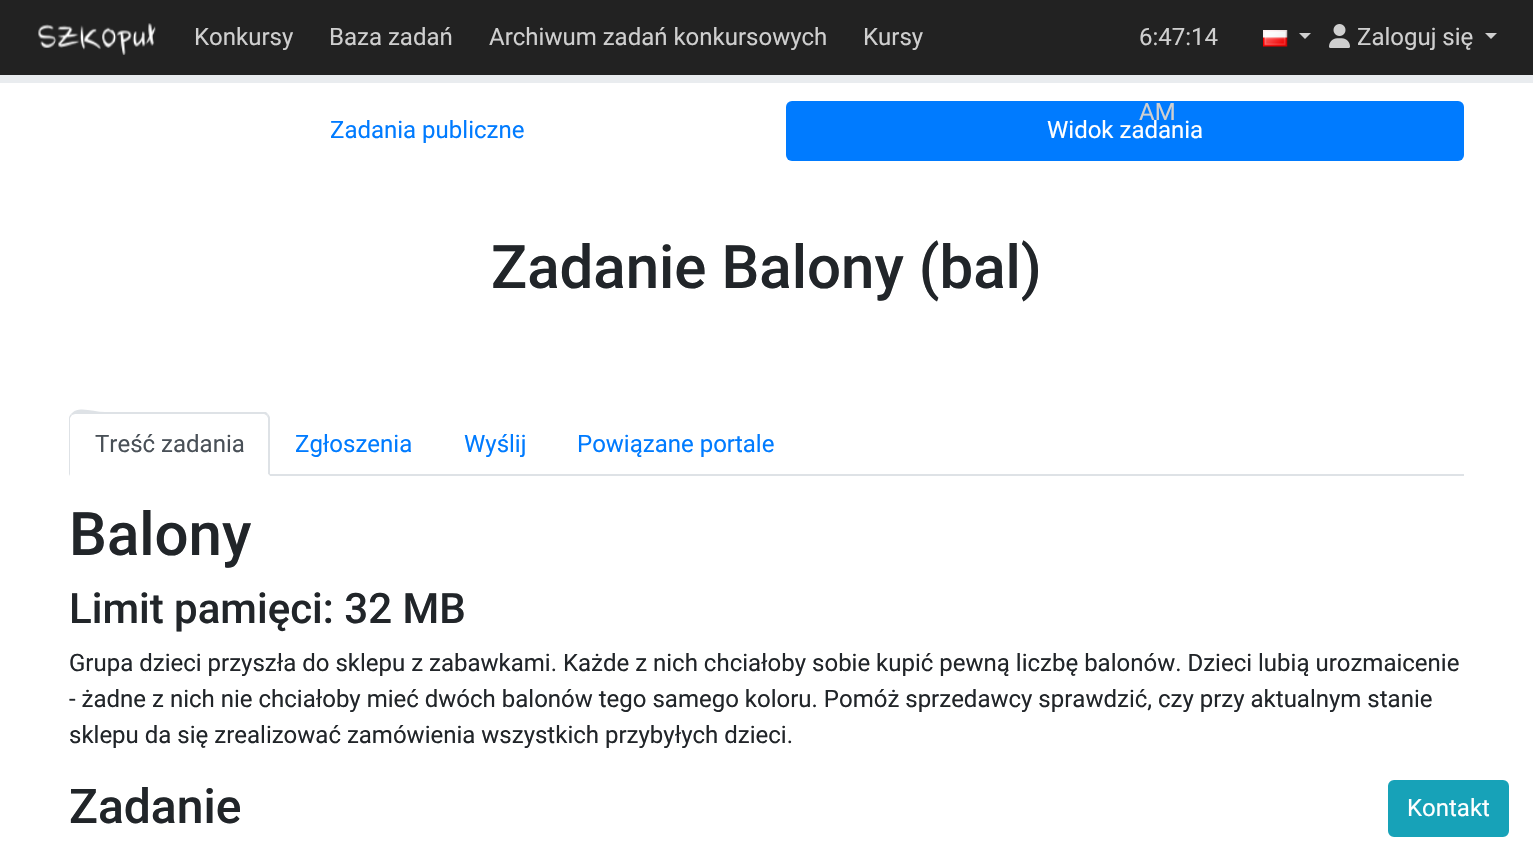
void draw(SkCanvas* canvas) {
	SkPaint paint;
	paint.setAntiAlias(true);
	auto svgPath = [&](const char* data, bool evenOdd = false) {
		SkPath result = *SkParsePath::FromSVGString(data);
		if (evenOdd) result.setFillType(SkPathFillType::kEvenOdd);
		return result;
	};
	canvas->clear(0xffffffff);
	paint.setColor(0xff222222);
	canvas->drawRect(SkRect::MakeXYWH(0, 0, 1533, 75), paint);
	canvas->drawImageRect(SkImages::DeferredFromEncodedData(SkData::MakeFromFileName("img1.png")), SkRect::MakeXYWH(38, 23, 118, 32), SkSamplingOptions());
	SkFont f1(fontMgr->matchFamilyStyle("Roboto", SkFontStyle::Normal()), 24);
	f1.setSubpixel(true);
	paint.setColor(0xffcfcfcf);
	canvas->drawString("Konkursy", 194, 45, f1, paint);
	canvas->drawString("Baza zadań", 329, 45, f1, paint);
	canvas->drawString("Archiwum zadań konkursowych", 489, 45, f1, paint);
	canvas->drawString("Kursy", 863, 45, f1, paint);
	canvas->drawString("6:47:14", 1139, 45, f1, paint);
	paint.setColor(0xff007bff);
	canvas->drawRoundRect(SkRect::MakeXYWH(786, 101, 678, 60), 6, 6, paint);
	paint.setColor(0xffcfcfcf);
	canvas->drawString("AM", 1139, 120, f1, paint);
	canvas->drawImageRect(SkImages::DeferredFromEncodedData(SkData::MakeFromFileName("img2.png")), SkRect::MakeXYWH(1263, 30, 25, 17), SkSamplingOptions());
	canvas->drawPath(svgPath("M1299 33H1311L1305 39Z"), paint);
	canvas->drawImageRect(SkImages::DeferredFromEncodedData(SkData::MakeFromFileName("img3.png")), SkRect::MakeXYWH(1329, 24, 21, 24), SkSamplingOptions());
	canvas->drawString("Zaloguj się", 1357, 45, f1, paint);
	canvas->drawPath(svgPath("M1485 33H1497L1491 39Z"), paint);
	paint.setColor(0xffe9ecef);
	canvas->drawRect(SkRect::MakeXYWH(0, 75, 1533, 8), paint);
	paint.setColor(0xff007bff);
	canvas->drawString("Zadania publiczne", 330, 138, f1, paint);
	paint.setColor(0xffffffff);
	canvas->drawString("Widok zadania", 1047, 138, f1, paint);
	SkFont f2(fontMgr->matchFamilyStyle("Roboto", SkFontStyle(500, SkFontStyle::kNormal_Width, SkFontStyle::kUpright_Slant)), 60);
	f2.setSubpixel(true);
	paint.setColor(0xff212529);
	canvas->drawString("Zadanie Balony (bal)", 491, 288, f2, paint);
	paint.setColor(0xffdee2e6);
	canvas->drawRect(SkRect::MakeXYWH(270, 474, 1194, 2), paint);
	canvas->drawPath(svgPath("M75 414L72 415L71 414C78 405 93 412 105 412H266L268 414L267 416C266 415 265 414 264 414Z"), paint);
	canvas->drawPath(svgPath("M270 476V418C270 417 269 415 268 414L267 416L268 418V474Z"), paint);
	paint.setColor(0xffffffff);
	canvas->drawPath(svgPath("M270 476H69L70 474H268Z"), paint);
	paint.setColor(0xffdee2e6);
	canvas->drawPath(svgPath("M69 476L70 474V418L72 415L71 414C70 415 69 417 69 418Z"), paint);
	paint.setColor(0xff495057);
	canvas->drawString("Treść zadania", 95, 452, f1, paint);
	paint.setColor(0xff007bff);
	canvas->drawString("Zgłoszenia", 295, 452, f1, paint);
	canvas->drawString("Wyślij", 464, 452, f1, paint);
	canvas->drawString("Powiązane portale", 577, 452, f1, paint);
	paint.setColor(0xff212529);
	canvas->drawString("Balony", 69, 555, f2, paint);
	SkFont f3(fontMgr->matchFamilyStyle("Roboto", SkFontStyle(500, SkFontStyle::kNormal_Width, SkFontStyle::kUpright_Slant)), 42);
	f3.setSubpixel(true);
	canvas->drawString("Limit pamięci: 32 MB", 69, 623, f3, paint);
	canvas->drawString("Grupa dzieci przyszła do sklepu z zabawkami. Każde z nich chciałoby sobie kupić pewną liczbę balonów. Dzieci lubią urozmaicenie", 69, 671, f1, paint);
	canvas->drawString("- żadne z nich nie chciałoby mieć dwóch balonów tego samego koloru. Pomóż sprzedawcy sprawdzić, czy przy aktualnym stanie", 69, 707, f1, paint);
	canvas->drawString("sklepu da się zrealizować zamówienia wszystkich przybyłych dzieci.", 69, 743, f1, paint);
	SkFont f4(fontMgr->matchFamilyStyle("Roboto", SkFontStyle(500, SkFontStyle::kNormal_Width, SkFontStyle::kUpright_Slant)), 48);
	f4.setSubpixel(true);
	canvas->drawString("Zadanie", 69, 823, f4, paint);
	paint.setColor(0xff17a2b8);
	canvas->drawRoundRect(SkRect::MakeXYWH(1389, 781, 119, 55), 5, 5, paint);
	paint.setStroke(true);
	paint.setStrokeWidth(2);
	canvas->drawRoundRect(SkRect::MakeXYWH(1389, 781, 119, 55), 5, 5, paint);
	paint.setStroke(false);
	paint.setColor(0xffffffff);
	canvas->drawString("Kontakt", 1407, 816, f1, paint);
}
